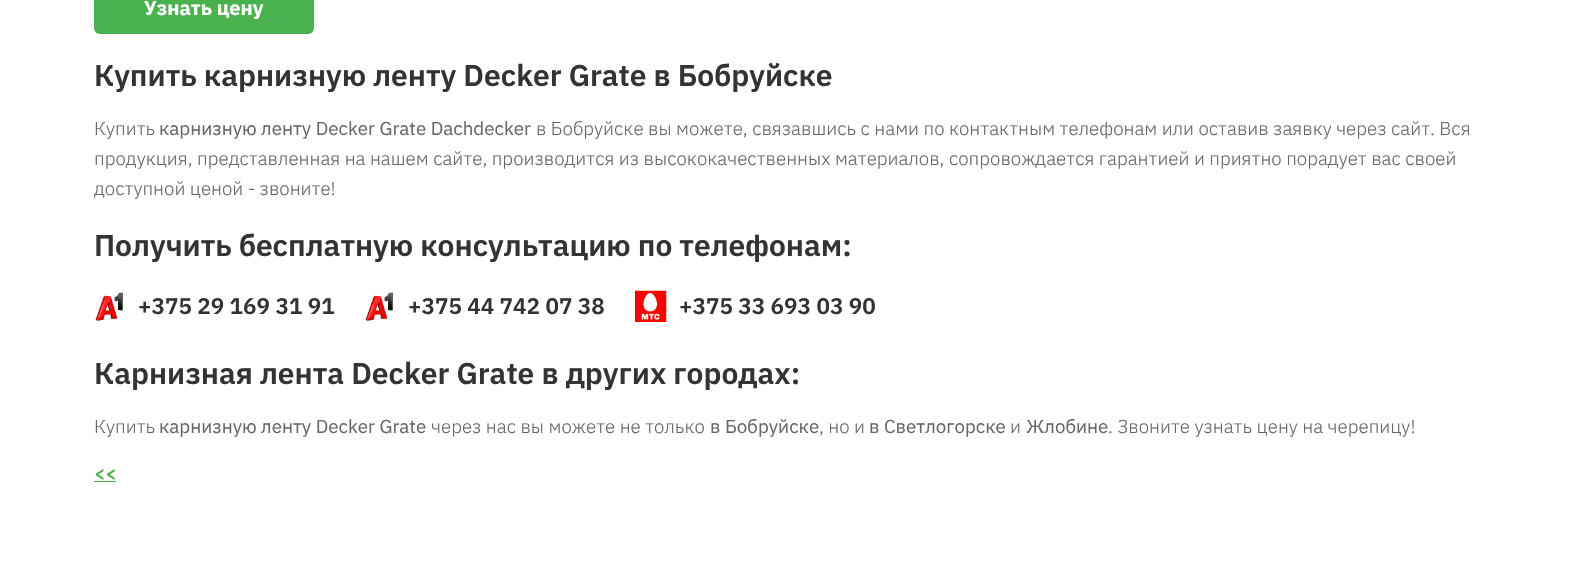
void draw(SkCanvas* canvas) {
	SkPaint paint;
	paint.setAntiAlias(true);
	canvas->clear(0xffffffff);
	paint.setColor(0xff49b14d);
	canvas->drawRoundRect(SkRect::MakeXYWH(94, -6, 220, 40), 6, 6, paint);
	SkFont f1(fontMgr->matchFamilyStyle("IBM Plex Sans", SkFontStyle::Bold()), 20);
	f1.setSubpixel(true);
	paint.setColor(0xffffffff);
	canvas->drawString("Узнать цену", 144, 15, f1, paint);
	SkFont f2(fontMgr->matchFamilyStyle("IBM Plex Sans", SkFontStyle(600, SkFontStyle::kNormal_Width, SkFontStyle::kUpright_Slant)), 30);
	f2.setSubpixel(true);
	paint.setColor(0xff333333);
	canvas->drawString("Купить карнизную ленту Decker Grate в Бобруйске", 94, 86, f2, paint);
	SkFont f3(fontMgr->matchFamilyStyle("IBM Plex Sans", SkFontStyle(300, SkFontStyle::kNormal_Width, SkFontStyle::kUpright_Slant)), 18.75);
	f3.setSubpixel(true);
	paint.setColor(0xff666666);
	canvas->drawString("Купить", 94, 135, f3, paint);
	SkFont f4(fontMgr->matchFamilyStyle("IBM Plex Sans", SkFontStyle::Normal()), 18.75);
	f4.setSubpixel(true);
	canvas->drawString("карнизную ленту Decker Grate Dachdecker", 159, 135, f4, paint);
	canvas->drawString("в Бобруйске вы можете, связавшись с нами по контактным телефонам или оставив заявку через сайт. Вся", 536, 135, f3, paint);
	canvas->drawString("продукция, представленная на нашем сайте, производится из высококачественных материалов, сопровождается гарантией и приятно порадует вас своей", 94, 165, f3, paint);
	canvas->drawString("доступной ценой - звоните!", 94, 195, f3, paint);
	paint.setColor(0xff333333);
	canvas->drawString("Получить бесплатную консультацию по телефонам:", 94, 256, f2, paint);
	canvas->drawImageRect(SkImages::DeferredFromEncodedData(SkData::MakeFromFileName("img1.png")), SkRect::MakeXYWH(95, 292, 28, 29), SkSamplingOptions());
	SkFont f5(fontMgr->matchFamilyStyle("IBM Plex Sans", SkFontStyle(600, SkFontStyle::kNormal_Width, SkFontStyle::kUpright_Slant)), 22.5);
	f5.setSubpixel(true);
	canvas->drawString("+375 29 169 31 91", 138, 314, f5, paint);
	canvas->drawImageRect(SkImages::DeferredFromEncodedData(SkData::MakeFromFileName("img1.png")), SkRect::MakeXYWH(365, 292, 28, 29), SkSamplingOptions());
	canvas->drawString("+375 44 742 07 38", 408, 314, f5, paint);
	canvas->drawImageRect(SkImages::DeferredFromEncodedData(SkData::MakeFromFileName("img2.png")), SkRect::MakeXYWH(635, 290, 32, 32), SkSamplingOptions());
	canvas->drawString("+375 33 693 03 90", 679, 314, f5, paint);
	canvas->drawString("Карнизная лента Decker Grate в других городах:", 94, 384, f2, paint);
	paint.setColor(0xff666666);
	canvas->drawString("Купить", 94, 433, f3, paint);
	canvas->drawString("карнизную ленту Decker Grate", 159, 433, f4, paint);
	canvas->drawString("через нас вы можете не только", 431, 433, f3, paint);
	canvas->drawString("в Бобруйске", 710, 433, f4, paint);
	canvas->drawString(", но и", 819, 433, f3, paint);
	canvas->drawString("в Светлогорске", 869, 433, f4, paint);
	canvas->drawString("и", 1010, 433, f3, paint);
	canvas->drawString("Жлобине", 1026, 433, f4, paint);
	canvas->drawString(". Звоните узнать цену на черепицу!", 1108, 433, f3, paint);
	SkFont f6(fontMgr->matchFamilyStyle("IBM Plex Sans", SkFontStyle(600, SkFontStyle::kNormal_Width, SkFontStyle::kUpright_Slant)), 18.75);
	f6.setSubpixel(true);
	paint.setColor(0xff49b14d);
	canvas->drawString("<<", 94, 480, f6, paint);
	canvas->drawRect(SkRect::MakeXYWH(94, 481, 22, 1), paint);
}
